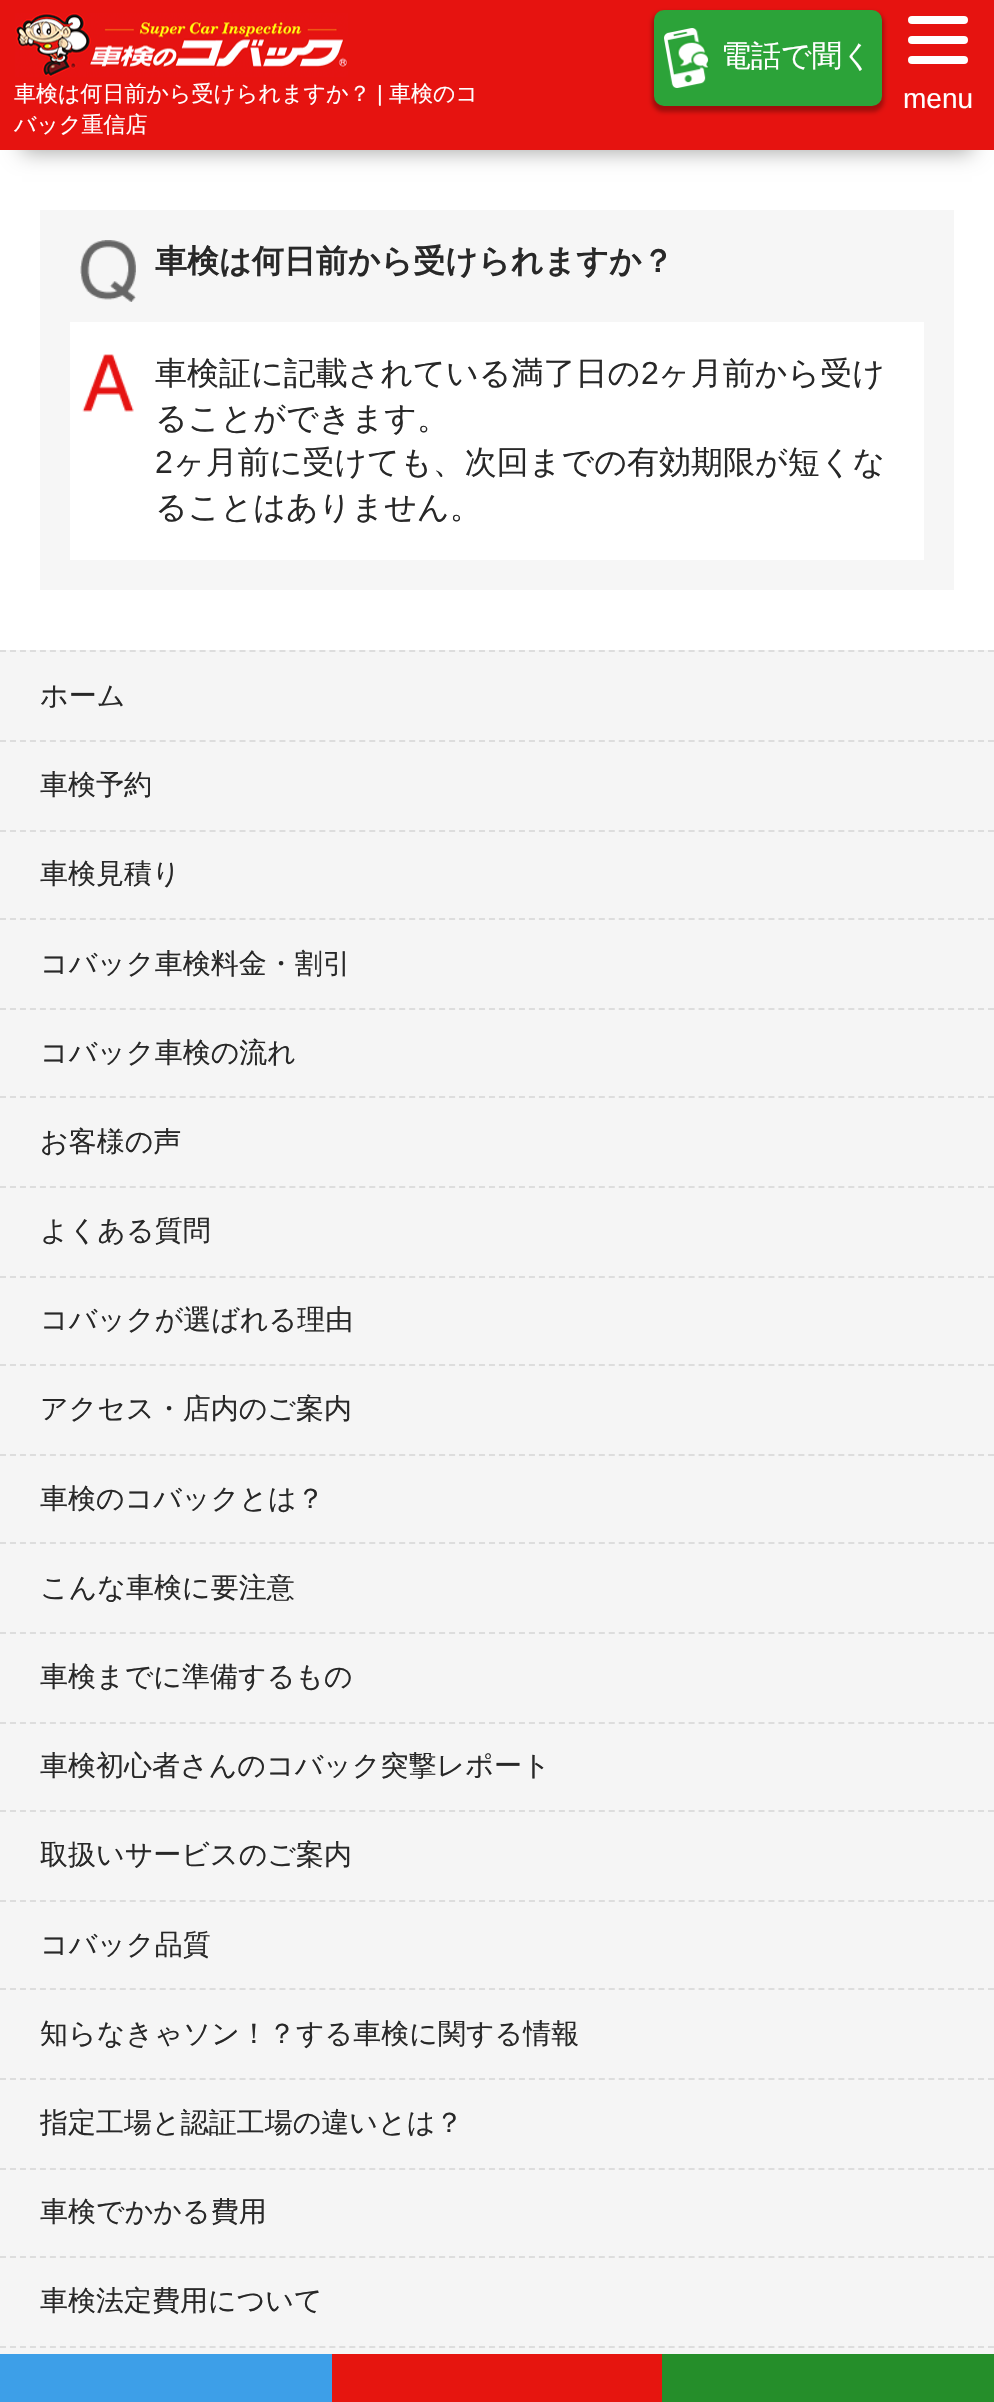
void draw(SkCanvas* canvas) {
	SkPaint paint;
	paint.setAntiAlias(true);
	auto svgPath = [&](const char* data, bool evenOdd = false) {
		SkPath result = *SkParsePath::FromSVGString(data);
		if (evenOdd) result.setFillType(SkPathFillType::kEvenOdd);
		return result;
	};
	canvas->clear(0xffffffff);
	paint.setColor(0xffa8a8a7);
	paint.setMaskFilter(SkMaskFilter::MakeBlur(kNormal_SkBlurStyle, 10));
	canvas->drawRect(SkRect::MakeXYWH(22, 46, 950, 106), paint);
	paint.setMaskFilter(nullptr);
	paint.setColor(0xffe61310);
	canvas->drawRect(SkRect::MakeXYWH(0, 0, 994, 150), paint);
	canvas->drawImageRect(SkImages::DeferredFromEncodedData(SkData::MakeFromFileName("img1.png")), SkRect::MakeXYWH(15, 13, 333, 64), SkSamplingOptions());
	SkFont f1(fontMgr->matchFamilyStyle("WenQuanYi Zen Hei", SkFontStyle(500, SkFontStyle::kNormal_Width, SkFontStyle::kUpright_Slant)), 22);
	f1.setSubpixel(true);
	paint.setColor(0xffffffff);
	canvas->drawString("車検は何日前から受けられますか？", 14, 101, f1, paint);
	SkFont f2(fontMgr->matchFamilyStyle("Liberation Sans", SkFontStyle::Normal()), 22);
	f2.setSubpixel(true);
	canvas->drawString("|", 377, 101, f2, paint);
	canvas->drawString("車検のコ", 389, 101, f1, paint);
	canvas->drawString("バック重信店", 14, 132, f1, paint);
	paint.setColor(0x4d000000);
	paint.setMaskFilter(SkMaskFilter::MakeBlur(kNormal_SkBlurStyle, 2));
	canvas->drawRoundRect(SkRect::MakeXYWH(652, 12, 232, 100), 12, 12, paint);
	paint.setMaskFilter(nullptr);
	paint.setColor(0xff2ca339);
	canvas->drawRoundRect(SkRect::MakeXYWH(654, 10, 228, 96), 10, 10, paint);
	canvas->drawImageRect(SkImages::DeferredFromEncodedData(SkData::MakeFromFileName("img2.png")), SkRect::MakeXYWH(664, 28, 46, 60), SkSamplingOptions());
	SkFont f3(fontMgr->matchFamilyStyle("WenQuanYi Zen Hei", SkFontStyle(500, SkFontStyle::kNormal_Width, SkFontStyle::kUpright_Slant)), 30);
	f3.setSubpixel(true);
	paint.setColor(0xffffffff);
	canvas->drawString("電話で聞く", 721, 66, f3, paint);
	canvas->drawRoundRect(SkRect::MakeXYWH(908, 36, 60, 8), 4, 4, paint);
	canvas->drawRoundRect(SkRect::MakeXYWH(908, 16, 60, 8), 4, 4, paint);
	canvas->drawRoundRect(SkRect::MakeXYWH(908, 56, 60, 8), 4, 4, paint);
	SkFont f4(fontMgr->matchFamilyStyle("Liberation Sans", SkFontStyle::Normal()), 28);
	f4.setSubpixel(true);
	canvas->drawString("menu", 903, 108, f4, paint);
	paint.setColor(0xfff6f6f6);
	canvas->drawRect(SkRect::MakeXYWH(40, 210, 914, 380), paint);
	canvas->drawImageRect(SkImages::DeferredFromEncodedData(SkData::MakeFromFileName("img3.png")), SkRect::MakeXYWH(80, 240, 56, 62), SkSamplingOptions());
	SkFont f5(fontMgr->matchFamilyStyle("WenQuanYi Zen Hei", SkFontStyle::Bold()), 32);
	f5.setSubpixel(true);
	paint.setColor(0xff282828);
	canvas->drawString("車検は何日前から受けられますか？", 155, 272, f5, paint);
	paint.setColor(0xffffffff);
	canvas->drawRect(SkRect::MakeXYWH(70, 322, 854, 238), paint);
	canvas->drawImageRect(SkImages::DeferredFromEncodedData(SkData::MakeFromFileName("img4.png")), SkRect::MakeXYWH(82, 354, 52, 58), SkSamplingOptions());
	SkFont f6(fontMgr->matchFamilyStyle("WenQuanYi Zen Hei", SkFontStyle(500, SkFontStyle::kNormal_Width, SkFontStyle::kUpright_Slant)), 32);
	f6.setSubpixel(true);
	paint.setColor(0xff282828);
	canvas->drawString("車検証に記載されている満了日の", 155, 384, f6, paint);
	SkFont f7(fontMgr->matchFamilyStyle("Liberation Sans", SkFontStyle::Normal()), 32);
	f7.setSubpixel(true);
	canvas->drawString("2", 641, 384, f7, paint);
	canvas->drawString("ヶ月前から受け", 658, 384, f6, paint);
	canvas->drawString("ることができます。", 155, 429, f6, paint);
	canvas->drawString("2", 155, 473, f7, paint);
	canvas->drawString("ヶ月前に受けても、次回までの有効期限が短くな", 173, 473, f6, paint);
	canvas->drawString("ることはありません。", 155, 518, f6, paint);
	paint.setColor(0xfff5f5f5);
	canvas->drawRect(SkRect::MakeXYWH(0, 650, 994, 1704), paint);
	paint.setStroke(true);
	paint.setStrokeWidth(2);
	paint.setColor(0xffdddddd);
	paint.setPathEffect(SkDashPathEffect::Make({{6, 3.98f}}, 0));
	canvas->drawPath(svgPath("M0 651H994"), paint);
	paint.setPathEffect(nullptr);
	paint.setPathEffect(SkDashPathEffect::Make({{6, 3.98f}}, 0));
	canvas->drawPath(svgPath("M0 741H994"), paint);
	paint.setPathEffect(nullptr);
	SkFont f8(fontMgr->matchFamilyStyle("WenQuanYi Zen Hei", SkFontStyle(500, SkFontStyle::kNormal_Width, SkFontStyle::kUpright_Slant)), 28);
	f8.setSubpixel(true);
	paint.setStroke(false);
	paint.setColor(0xff282828);
	canvas->drawString("ホーム", 40, 705, f8, paint);
	paint.setStroke(true);
	paint.setColor(0xffdddddd);
	paint.setPathEffect(SkDashPathEffect::Make({{6, 3.98f}}, 0));
	canvas->drawPath(svgPath("M0 831H994"), paint);
	paint.setPathEffect(nullptr);
	paint.setStroke(false);
	paint.setColor(0xff282828);
	canvas->drawString("車検予約", 40, 794, f8, paint);
	paint.setStroke(true);
	paint.setColor(0xffdddddd);
	paint.setPathEffect(SkDashPathEffect::Make({{6, 3.98f}}, 0));
	canvas->drawPath(svgPath("M0 919H994"), paint);
	paint.setPathEffect(nullptr);
	paint.setStroke(false);
	paint.setColor(0xff282828);
	canvas->drawString("車検見積り", 40, 883, f8, paint);
	paint.setStroke(true);
	paint.setColor(0xffdddddd);
	paint.setPathEffect(SkDashPathEffect::Make({{6, 3.98f}}, 0));
	canvas->drawPath(svgPath("M0 1009H994"), paint);
	paint.setPathEffect(nullptr);
	paint.setStroke(false);
	paint.setColor(0xff282828);
	canvas->drawString("コバック車検料金・割引", 40, 973, f8, paint);
	paint.setStroke(true);
	paint.setColor(0xffdddddd);
	paint.setPathEffect(SkDashPathEffect::Make({{6, 3.98f}}, 0));
	canvas->drawPath(svgPath("M0 1097H994"), paint);
	paint.setPathEffect(nullptr);
	paint.setStroke(false);
	paint.setColor(0xff282828);
	canvas->drawString("コバック車検の流れ", 40, 1062, f8, paint);
	paint.setStroke(true);
	paint.setColor(0xffdddddd);
	paint.setPathEffect(SkDashPathEffect::Make({{6, 3.98f}}, 0));
	canvas->drawPath(svgPath("M0 1187H994"), paint);
	paint.setPathEffect(nullptr);
	paint.setStroke(false);
	paint.setColor(0xff282828);
	canvas->drawString("お客様の声", 40, 1151, f8, paint);
	paint.setStroke(true);
	paint.setColor(0xffdddddd);
	paint.setPathEffect(SkDashPathEffect::Make({{6, 3.98f}}, 0));
	canvas->drawPath(svgPath("M0 1277H994"), paint);
	paint.setPathEffect(nullptr);
	paint.setStroke(false);
	paint.setColor(0xff282828);
	canvas->drawString("よくある質問", 40, 1240, f8, paint);
	paint.setStroke(true);
	paint.setColor(0xffdddddd);
	paint.setPathEffect(SkDashPathEffect::Make({{6, 3.98f}}, 0));
	canvas->drawPath(svgPath("M0 1365H994"), paint);
	paint.setPathEffect(nullptr);
	paint.setStroke(false);
	paint.setColor(0xff282828);
	canvas->drawString("コバックが選ばれる理由", 40, 1329, f8, paint);
	paint.setStroke(true);
	paint.setColor(0xffdddddd);
	paint.setPathEffect(SkDashPathEffect::Make({{6, 3.98f}}, 0));
	canvas->drawPath(svgPath("M0 1455H994"), paint);
	paint.setPathEffect(nullptr);
	paint.setStroke(false);
	paint.setColor(0xff282828);
	canvas->drawString("アクセス・店内のご案内", 40, 1418, f8, paint);
	paint.setStroke(true);
	paint.setColor(0xffdddddd);
	paint.setPathEffect(SkDashPathEffect::Make({{6, 3.98f}}, 0));
	canvas->drawPath(svgPath("M0 1543H994"), paint);
	paint.setPathEffect(nullptr);
	paint.setStroke(false);
	paint.setColor(0xff282828);
	canvas->drawString("車検のコバックとは？", 40, 1508, f8, paint);
	paint.setStroke(true);
	paint.setColor(0xffdddddd);
	paint.setPathEffect(SkDashPathEffect::Make({{6, 3.98f}}, 0));
	canvas->drawPath(svgPath("M0 1633H994"), paint);
	paint.setPathEffect(nullptr);
	paint.setStroke(false);
	paint.setColor(0xff282828);
	canvas->drawString("こんな車検に要注意", 40, 1597, f8, paint);
	paint.setStroke(true);
	paint.setColor(0xffdddddd);
	paint.setPathEffect(SkDashPathEffect::Make({{6, 3.98f}}, 0));
	canvas->drawPath(svgPath("M0 1723H994"), paint);
	paint.setPathEffect(nullptr);
	paint.setStroke(false);
	paint.setColor(0xff282828);
	canvas->drawString("車検までに準備するもの", 40, 1686, f8, paint);
	paint.setStroke(true);
	paint.setColor(0xffdddddd);
	paint.setPathEffect(SkDashPathEffect::Make({{6, 3.98f}}, 0));
	canvas->drawPath(svgPath("M0 1811H994"), paint);
	paint.setPathEffect(nullptr);
	paint.setStroke(false);
	paint.setColor(0xff282828);
	canvas->drawString("車検初心者さんのコバック突撃レポート", 40, 1775, f8, paint);
	paint.setStroke(true);
	paint.setColor(0xffdddddd);
	paint.setPathEffect(SkDashPathEffect::Make({{6, 3.98f}}, 0));
	canvas->drawPath(svgPath("M0 1901H994"), paint);
	paint.setPathEffect(nullptr);
	paint.setStroke(false);
	paint.setColor(0xff282828);
	canvas->drawString("取扱いサービスのご案内", 40, 1864, f8, paint);
	paint.setStroke(true);
	paint.setColor(0xffdddddd);
	paint.setPathEffect(SkDashPathEffect::Make({{6, 3.98f}}, 0));
	canvas->drawPath(svgPath("M0 1989H994"), paint);
	paint.setPathEffect(nullptr);
	paint.setStroke(false);
	paint.setColor(0xff282828);
	canvas->drawString("コバック品質", 40, 1954, f8, paint);
	paint.setStroke(true);
	paint.setColor(0xffdddddd);
	paint.setPathEffect(SkDashPathEffect::Make({{6, 3.98f}}, 0));
	canvas->drawPath(svgPath("M0 2079H994"), paint);
	paint.setPathEffect(nullptr);
	paint.setStroke(false);
	paint.setColor(0xff282828);
	canvas->drawString("知らなきゃソン！？する車検に関する情報", 40, 2043, f8, paint);
	paint.setStroke(true);
	paint.setColor(0xffdddddd);
	paint.setPathEffect(SkDashPathEffect::Make({{6, 3.98f}}, 0));
	canvas->drawPath(svgPath("M0 2169H994"), paint);
	paint.setPathEffect(nullptr);
	paint.setStroke(false);
	paint.setColor(0xff282828);
	canvas->drawString("指定工場と認証工場の違いとは？", 40, 2132, f8, paint);
	paint.setStroke(true);
	paint.setColor(0xffdddddd);
	paint.setPathEffect(SkDashPathEffect::Make({{6, 3.98f}}, 0));
	canvas->drawPath(svgPath("M0 2257H994"), paint);
	paint.setPathEffect(nullptr);
	paint.setStroke(false);
	paint.setColor(0xff282828);
	canvas->drawString("車検でかかる費用", 40, 2221, f8, paint);
	paint.setStroke(true);
	paint.setColor(0xffdddddd);
	paint.setPathEffect(SkDashPathEffect::Make({{6, 3.98f}}, 0));
	canvas->drawPath(svgPath("M0 2347H994"), paint);
	paint.setPathEffect(nullptr);
	paint.setStroke(false);
	paint.setColor(0xff282828);
	canvas->drawString("車検法定費用について", 40, 2310, f8, paint);
	paint.setColor(0xff3d9fe8);
	canvas->drawRect(SkRect::MakeXYWH(0, 2354, 332, 48), paint);
	paint.setColor(0xffe6150f);
	canvas->drawRect(SkRect::MakeXYWH(332, 2354, 330, 48), paint);
	paint.setColor(0xff258e2a);
	canvas->drawRect(SkRect::MakeXYWH(662, 2354, 332, 48), paint);
}
